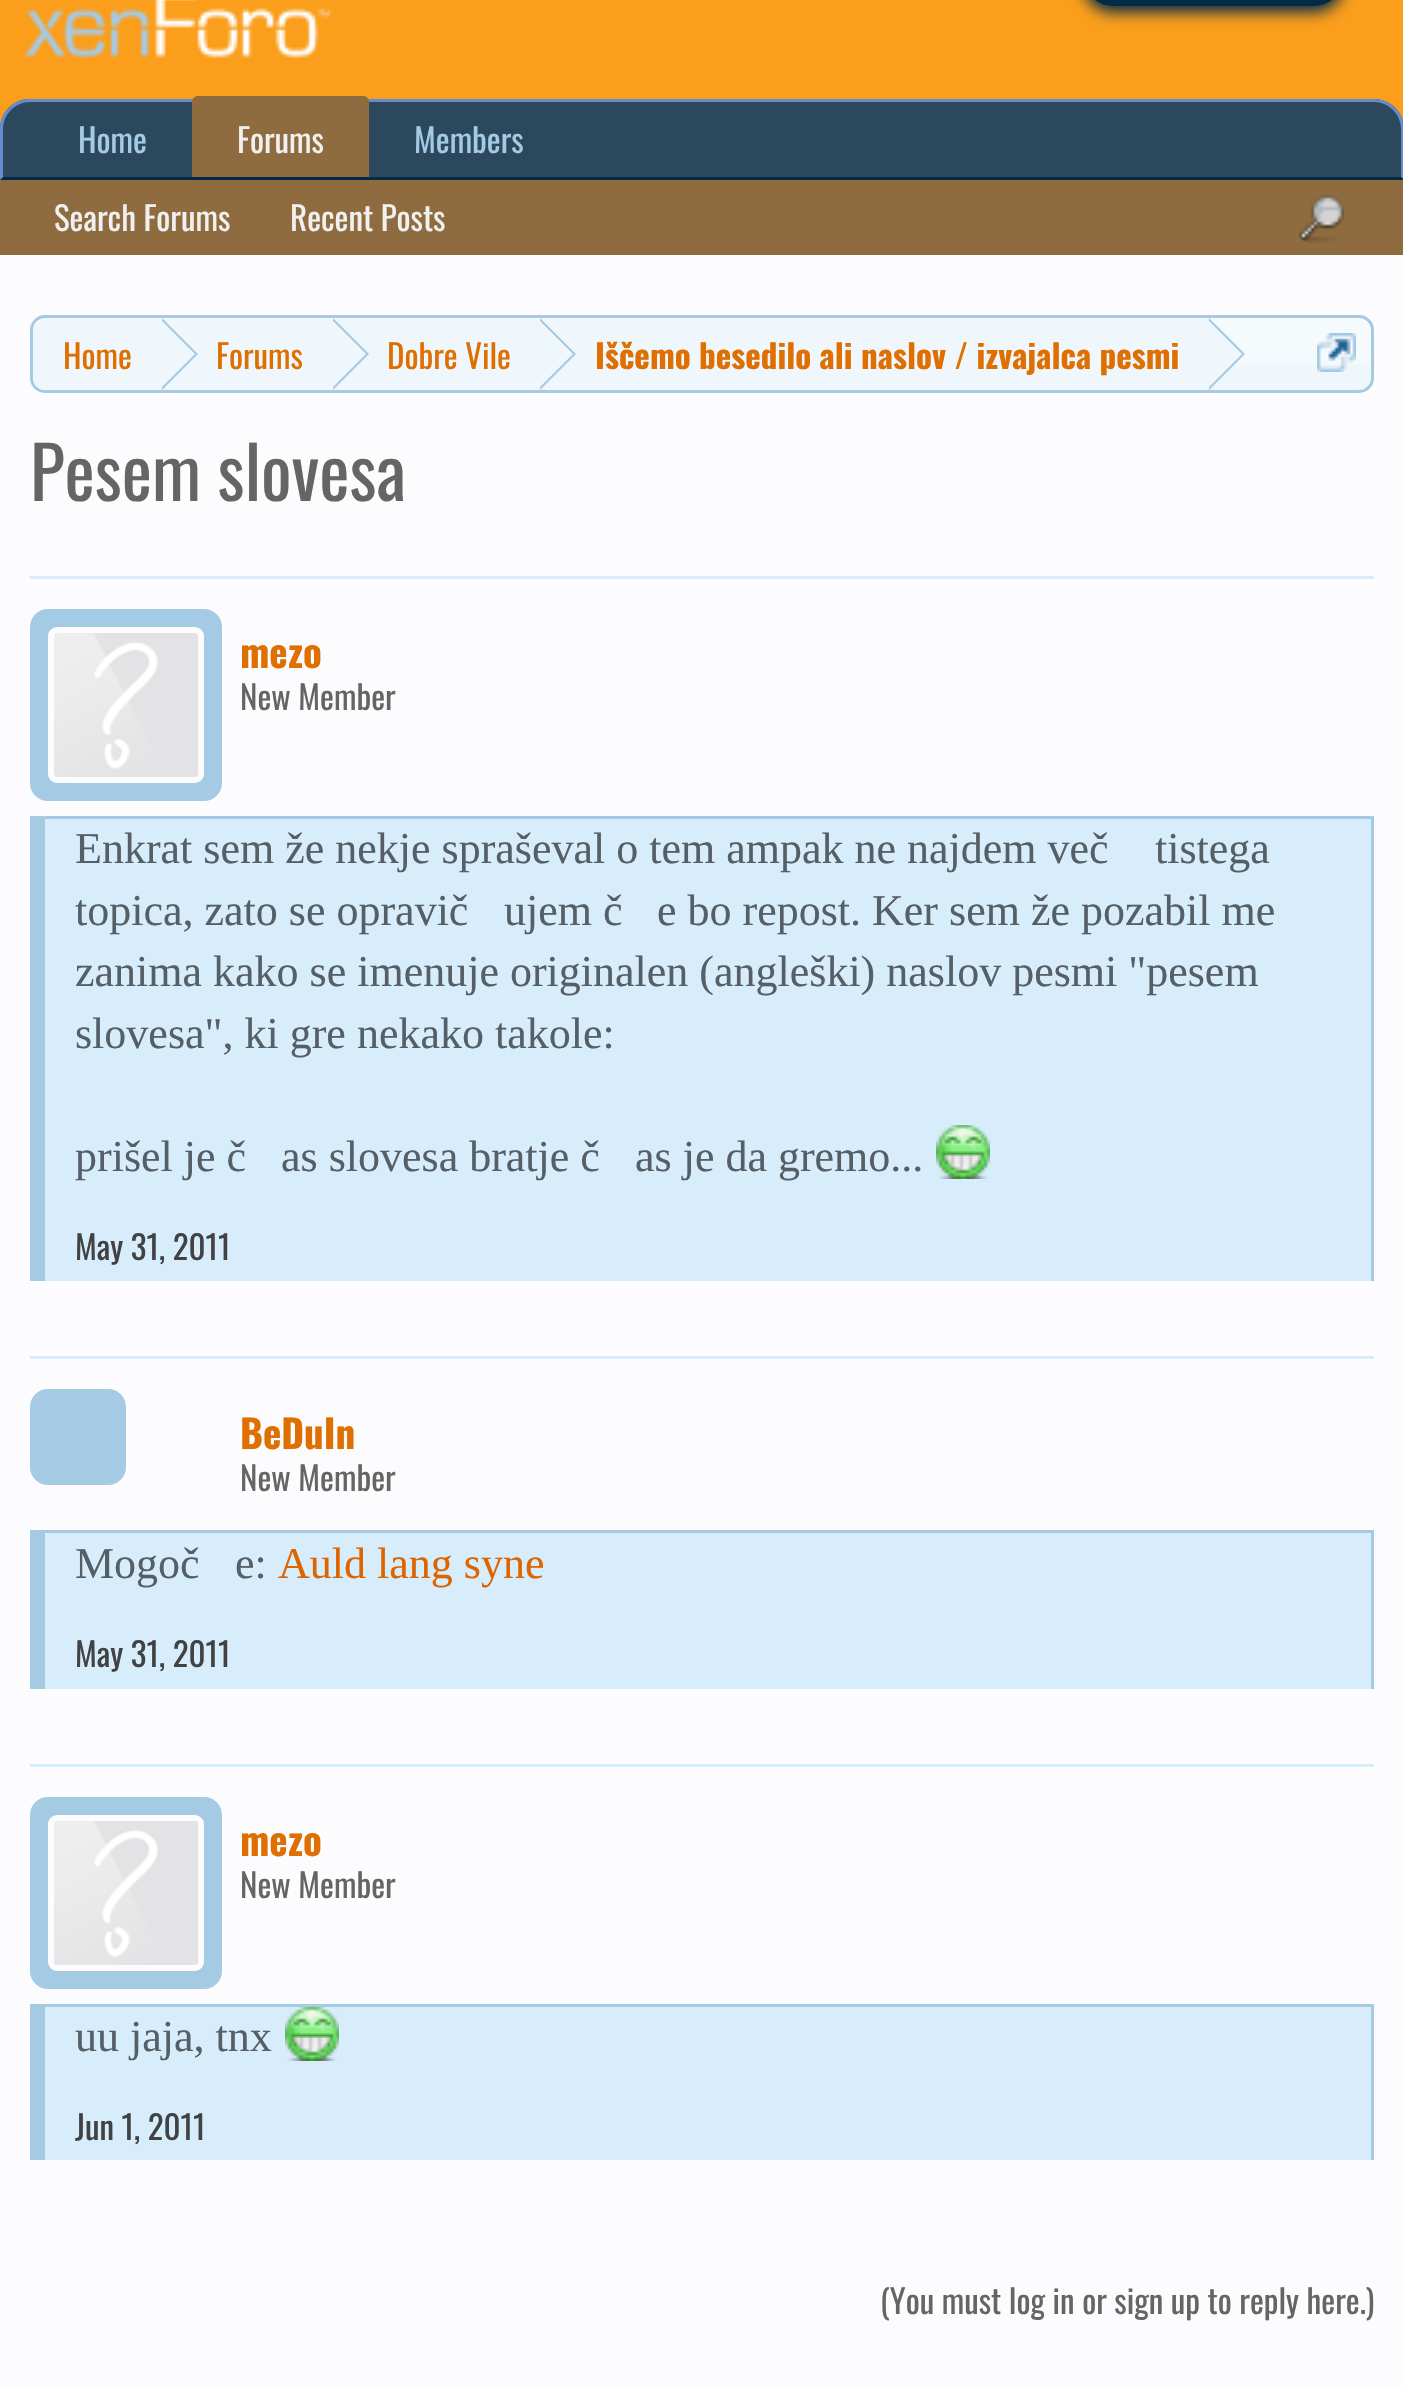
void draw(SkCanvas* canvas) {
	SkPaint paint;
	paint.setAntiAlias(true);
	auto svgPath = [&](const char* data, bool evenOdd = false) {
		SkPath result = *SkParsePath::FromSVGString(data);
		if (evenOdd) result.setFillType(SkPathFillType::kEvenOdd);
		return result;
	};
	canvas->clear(0xfffb9e1b);
	paint.setColor(0xff032a46);
	paint.setMaskFilter(SkMaskFilter::MakeBlur(kNormal_SkBlurStyle, 7.5));
	canvas->drawRoundRect(SkRect::MakeXYWH(1083, -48, 261, 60), 30, 30, paint);
	paint.setMaskFilter(nullptr);
	canvas->drawPath(svgPath("M1083-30H1344V-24C1344-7.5 1330.5 6 1314 6H1113C1096.5 6 1083-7.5 1083-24Z"), paint);
	canvas->drawImageRect(SkImages::DeferredFromEncodedData(SkData::MakeFromFileName("img1.png")), SkRect::MakeXYWH(23, 0, 308, 58), SkSamplingOptions());
	paint.setColor(0xff2b485c);
	canvas->drawPath(svgPath("M30 99H1374C1390.5 99 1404 112.5 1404 129V180H0V129C0 112.5 13.5 99 30 99Z"), paint);
	paint.setColor(0xff658bd1);
	canvas->drawPath(svgPath("M30 99C22 99 14 102 9 108L11 110C16 105 22 102 30 102H1374C1382 102 1388 105 1393 110L1395 108C1390 102 1382 99 1374 99Z"), paint);
	canvas->drawPath(svgPath("M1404 180V129C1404 120 1401 113 1395 108L1393 110C1398 115 1401 122 1401 129V177Z"), paint);
	paint.setColor(0xff032a46);
	canvas->drawPath(svgPath("M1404 180L1401 177H3L0 180Z"), paint);
	paint.setColor(0xff658bd1);
	canvas->drawPath(svgPath("M0 180L3 177V129C3 122 6 115 11 110L9 108C3 113 0 120 0 129Z"), paint);
	paint.setColor(0xff8f6c3f);
	canvas->drawPath(svgPath("M198 96H363C366.5 96 369 98.5 369 102V177H192V102C192 98.5 194.5 96 198 96Z"), paint);
	SkFont f1(fontMgr->matchFamilyStyle("Oswald", SkFontStyle::Normal()), 33);
	f1.setSubpixel(true);
	paint.setColor(0xfff0f0f0);
	canvas->drawString("Forums", 237, 153, f1, paint);
	paint.setColor(0xff8f6c3f);
	canvas->drawRect(SkRect::MakeXYWH(0, 180, 1403, 75), paint);
	paint.setColor(0xfff0f0f0);
	canvas->drawString("Search Forums", 54, 231, f1, paint);
	canvas->drawString("Recent Posts", 290, 231, f1, paint);
	paint.setColor(0xffa5cae4);
	canvas->drawString("Home", 78, 153, f1, paint);
	canvas->drawString("Members", 414, 153, f1, paint);
	canvas->drawImageRect(SkImages::DeferredFromEncodedData(SkData::MakeFromFileName("img2.png")), SkRect::MakeXYWH(1298, 195, 46, 48), SkSamplingOptions());
	paint.setColor(0xfffcfcff);
	canvas->drawRect(SkRect::MakeXYWH(0, 255, 1403, 2132), paint);
	paint.setColor(0xfff0f7fc);
	canvas->drawRoundRect(SkRect::MakeXYWH(30, 315, 1344, 78), 15, 15, paint);
	canvas->drawImageRect(SkImages::DeferredFromEncodedData(SkData::MakeFromFileName("img3.png")), SkRect::MakeXYWH(30, 318, 1344, 47), SkSamplingOptions());
	paint.setStroke(true);
	paint.setStrokeWidth(3);
	paint.setColor(0xffa5cae4);
	canvas->drawRoundRect(SkRect::MakeXYWH(31.5, 316.5, 1341, 75), 13.5, 13.5, paint);
	canvas->save();
	canvas->clipPath(svgPath("M45 318H1359C1365.5 318 1371 323.5 1371 330V378C1371 384.5 1365.5 390 1359 390H45C38.5 390 33 384.5 33 378V330C33 323.5 38.5 318 45 318Z"), true);
	paint.setStroke(false);
	paint.setColor(0xfff0f7fc);
	canvas->drawPath(svgPath("M48 318H162V393H48C39.5 393 33 386.5 33 378V333C33 324.5 39.5 318 48 318Z"), paint);
	canvas->restore();
	paint.setColor(0xffde6f00);
	canvas->drawString("Home", 63, 369, f1, paint);
	paint.setColor(0xfff0f7fc);
	canvas->drawRect(SkRect::MakeXYWH(162, 318, 1047, 47), paint);
	paint.setColor(0xffa5cae4);
	canvas->drawPath(svgPath("M162 390V318L198 354Z"), paint);
	paint.setColor(0xfff0f7fc);
	canvas->drawPath(svgPath("M159 390V318L195 354Z"), paint);
	paint.setColor(0xffde6f00);
	canvas->drawString("Forums", 216, 369, f1, paint);
	paint.setColor(0xffa5cae4);
	canvas->drawPath(svgPath("M333 390V318L369 354Z"), paint);
	paint.setColor(0xfff0f7fc);
	canvas->drawPath(svgPath("M330 390V318L366 354Z"), paint);
	paint.setColor(0xffde6f00);
	canvas->drawString("Dobre Vile", 387, 369, f1, paint);
	paint.setColor(0xffa5cae4);
	canvas->drawPath(svgPath("M540 390V318L576 354Z"), paint);
	paint.setColor(0xfff0f7fc);
	canvas->drawPath(svgPath("M537 390V318L573 354Z"), paint);
	SkFont f2(fontMgr->matchFamilyStyle("Oswald", SkFontStyle::Bold()), 33);
	f2.setSubpixel(true);
	paint.setColor(0xffde6f00);
	canvas->drawString("Iščemo besedilo ali naslov / izvajalca pesmi", 595, 369, f2, paint);
	paint.setColor(0xffa5cae4);
	canvas->drawPath(svgPath("M1209 390V318L1245 354Z"), paint);
	paint.setColor(0xfff0f7fc);
	canvas->drawPath(svgPath("M1206 390V318L1242 354Z"), paint);
	canvas->drawImageRect(SkImages::DeferredFromEncodedData(SkData::MakeFromFileName("img4.png")), SkRect::MakeXYWH(1317, 333, 39, 39), SkSamplingOptions());
	SkFont f3(fontMgr->matchFamilyStyle("Oswald", SkFontStyle::Normal()), 72);
	f3.setSubpixel(true);
	paint.setColor(0xff656566);
	canvas->drawString("Pesem slovesa", 30, 501, f3, paint);
	paint.setColor(0xffd7edfc);
	canvas->drawRect(SkRect::MakeXYWH(30, 576, 1344, 3), paint);
	paint.setColor(0xffa5cae4);
	canvas->drawRoundRect(SkRect::MakeXYWH(30, 609, 192, 192), 18, 18, paint);
	paint.setColor(0xfffcfcff);
	canvas->drawRoundRect(SkRect::MakeXYWH(46.5, 625.5, 159, 159), 10.5, 10.5, paint);
	paint.setStroke(true);
	paint.setColor(0xffa5cae4);
	canvas->drawRoundRect(SkRect::MakeXYWH(46.5, 625.5, 159, 159), 10.5, 10.5, paint);
	canvas->drawImageRect(SkImages::DeferredFromEncodedData(SkData::MakeFromFileName("img5.png")), SkRect::MakeXYWH(54, 633, 144, 144), SkSamplingOptions());
	SkFont f4(fontMgr->matchFamilyStyle("Oswald", SkFontStyle::Bold()), 39);
	f4.setSubpixel(true);
	paint.setStroke(false);
	paint.setColor(0xffde6f00);
	canvas->drawString("mezo", 240, 668, f4, paint);
	paint.setColor(0xff656566);
	canvas->drawString("New Member", 240, 710, f1, paint);
	paint.setColor(0xffd7edfc);
	canvas->drawRect(SkRect::MakeXYWH(45, 819, 1326, 462), paint);
	paint.setColor(0xffa5cae4);
	canvas->drawRect(SkRect::MakeXYWH(45, 816, 1329, 3), paint);
	canvas->drawRect(SkRect::MakeXYWH(1371, 816, 3, 465), paint);
	canvas->drawRect(SkRect::MakeXYWH(30, 816, 15, 465), paint);
	SkFont f5(fontMgr->matchFamilyStyle("Liberation Serif", SkFontStyle::Normal()), 44);
	f5.setSubpixel(true);
	paint.setColor(0xff565f65);
	canvas->drawString("Enkrat sem že nekje spraševal o tem ampak ne najdem več", 75, 863, f5, paint);
	canvas->drawString("tistega", 1155, 863, f5, paint);
	canvas->drawString("topica, zato se opravič", 75, 925, f5, paint);
	canvas->drawString("ujem č", 504, 925, f5, paint);
	canvas->drawString("e bo repost. Ker sem že pozabil me", 657, 925, f5, paint);
	canvas->drawString("zanima kako se imenuje originalen (angleški) naslov pesmi \"pesem", 75, 986, f5, paint);
	canvas->drawString("slovesa\", ki gre nekako takole:", 75, 1048, f5, paint);
	canvas->drawString("prišel je č", 75, 1171, f5, paint);
	canvas->drawString("as slovesa bratje č", 281, 1171, f5, paint);
	canvas->drawString("as je da gremo...", 635, 1171, f5, paint);
	canvas->drawImageRect(SkImages::DeferredFromEncodedData(SkData::MakeFromFileName("img6.png")), SkRect::MakeXYWH(936, 1125, 54, 54), SkSamplingOptions());
	paint.setColor(0xff424242);
	canvas->drawString("May 31, 2011", 75, 1260, f1, paint);
	paint.setColor(0xffd7edfc);
	canvas->drawRect(SkRect::MakeXYWH(30, 1356, 1344, 3), paint);
	paint.setColor(0xffa5cae4);
	canvas->drawRoundRect(SkRect::MakeXYWH(30, 1389, 96, 96), 18, 18, paint);
	paint.setColor(0xffde6f00);
	canvas->drawString("BeDuIn", 240, 1449, f4, paint);
	paint.setColor(0xff656566);
	canvas->drawString("New Member", 240, 1491, f1, paint);
	paint.setColor(0xffd7edfc);
	canvas->drawRect(SkRect::MakeXYWH(45, 1533, 1326, 156), paint);
	paint.setColor(0xffa5cae4);
	canvas->drawRect(SkRect::MakeXYWH(45, 1530, 1329, 3), paint);
	canvas->drawRect(SkRect::MakeXYWH(1371, 1530, 3, 159), paint);
	canvas->drawRect(SkRect::MakeXYWH(30, 1530, 15, 159), paint);
	paint.setColor(0xff565f65);
	canvas->drawString("Mogoč", 75, 1578, f5, paint);
	canvas->drawString("e:", 235, 1578, f5, paint);
	paint.setColor(0xffde6400);
	canvas->drawString("Auld lang syne", 278, 1578, f5, paint);
	paint.setColor(0xff424242);
	canvas->drawString("May 31, 2011", 75, 1667, f1, paint);
	paint.setColor(0xffd7edfc);
	canvas->drawRect(SkRect::MakeXYWH(30, 1764, 1344, 3), paint);
	paint.setColor(0xffa5cae4);
	canvas->drawRoundRect(SkRect::MakeXYWH(30, 1797, 192, 192), 18, 18, paint);
	paint.setColor(0xfffcfcff);
	canvas->drawRoundRect(SkRect::MakeXYWH(46.5, 1813.5, 159, 159), 10.5, 10.5, paint);
	paint.setStroke(true);
	paint.setColor(0xffa5cae4);
	canvas->drawRoundRect(SkRect::MakeXYWH(46.5, 1813.5, 159, 159), 10.5, 10.5, paint);
	canvas->drawImageRect(SkImages::DeferredFromEncodedData(SkData::MakeFromFileName("img7.png")), SkRect::MakeXYWH(54, 1821, 144, 144), SkSamplingOptions());
	paint.setStroke(false);
	paint.setColor(0xffde6f00);
	canvas->drawString("mezo", 240, 1856, f4, paint);
	paint.setColor(0xff656566);
	canvas->drawString("New Member", 240, 1898, f1, paint);
	paint.setColor(0xffd7edfc);
	canvas->drawRect(SkRect::MakeXYWH(45, 2007, 1326, 153), paint);
	paint.setColor(0xffa5cae4);
	canvas->drawRect(SkRect::MakeXYWH(45, 2004, 1329, 3), paint);
	canvas->drawRect(SkRect::MakeXYWH(1371, 2004, 3, 156), paint);
	canvas->drawRect(SkRect::MakeXYWH(30, 2004, 15, 156), paint);
	paint.setColor(0xff565f65);
	canvas->drawString("uu jaja, tnx", 75, 2051, f5, paint);
	canvas->drawImageRect(SkImages::DeferredFromEncodedData(SkData::MakeFromFileName("img8.png")), SkRect::MakeXYWH(285, 2007, 54, 54), SkSamplingOptions());
	paint.setColor(0xff424242);
	canvas->drawString("Jun 1, 2011", 75, 2140, f1, paint);
	paint.setColor(0xff656566);
	canvas->drawString("(You must log in or sign up to reply here.)", 880, 2314, f1, paint);
}
